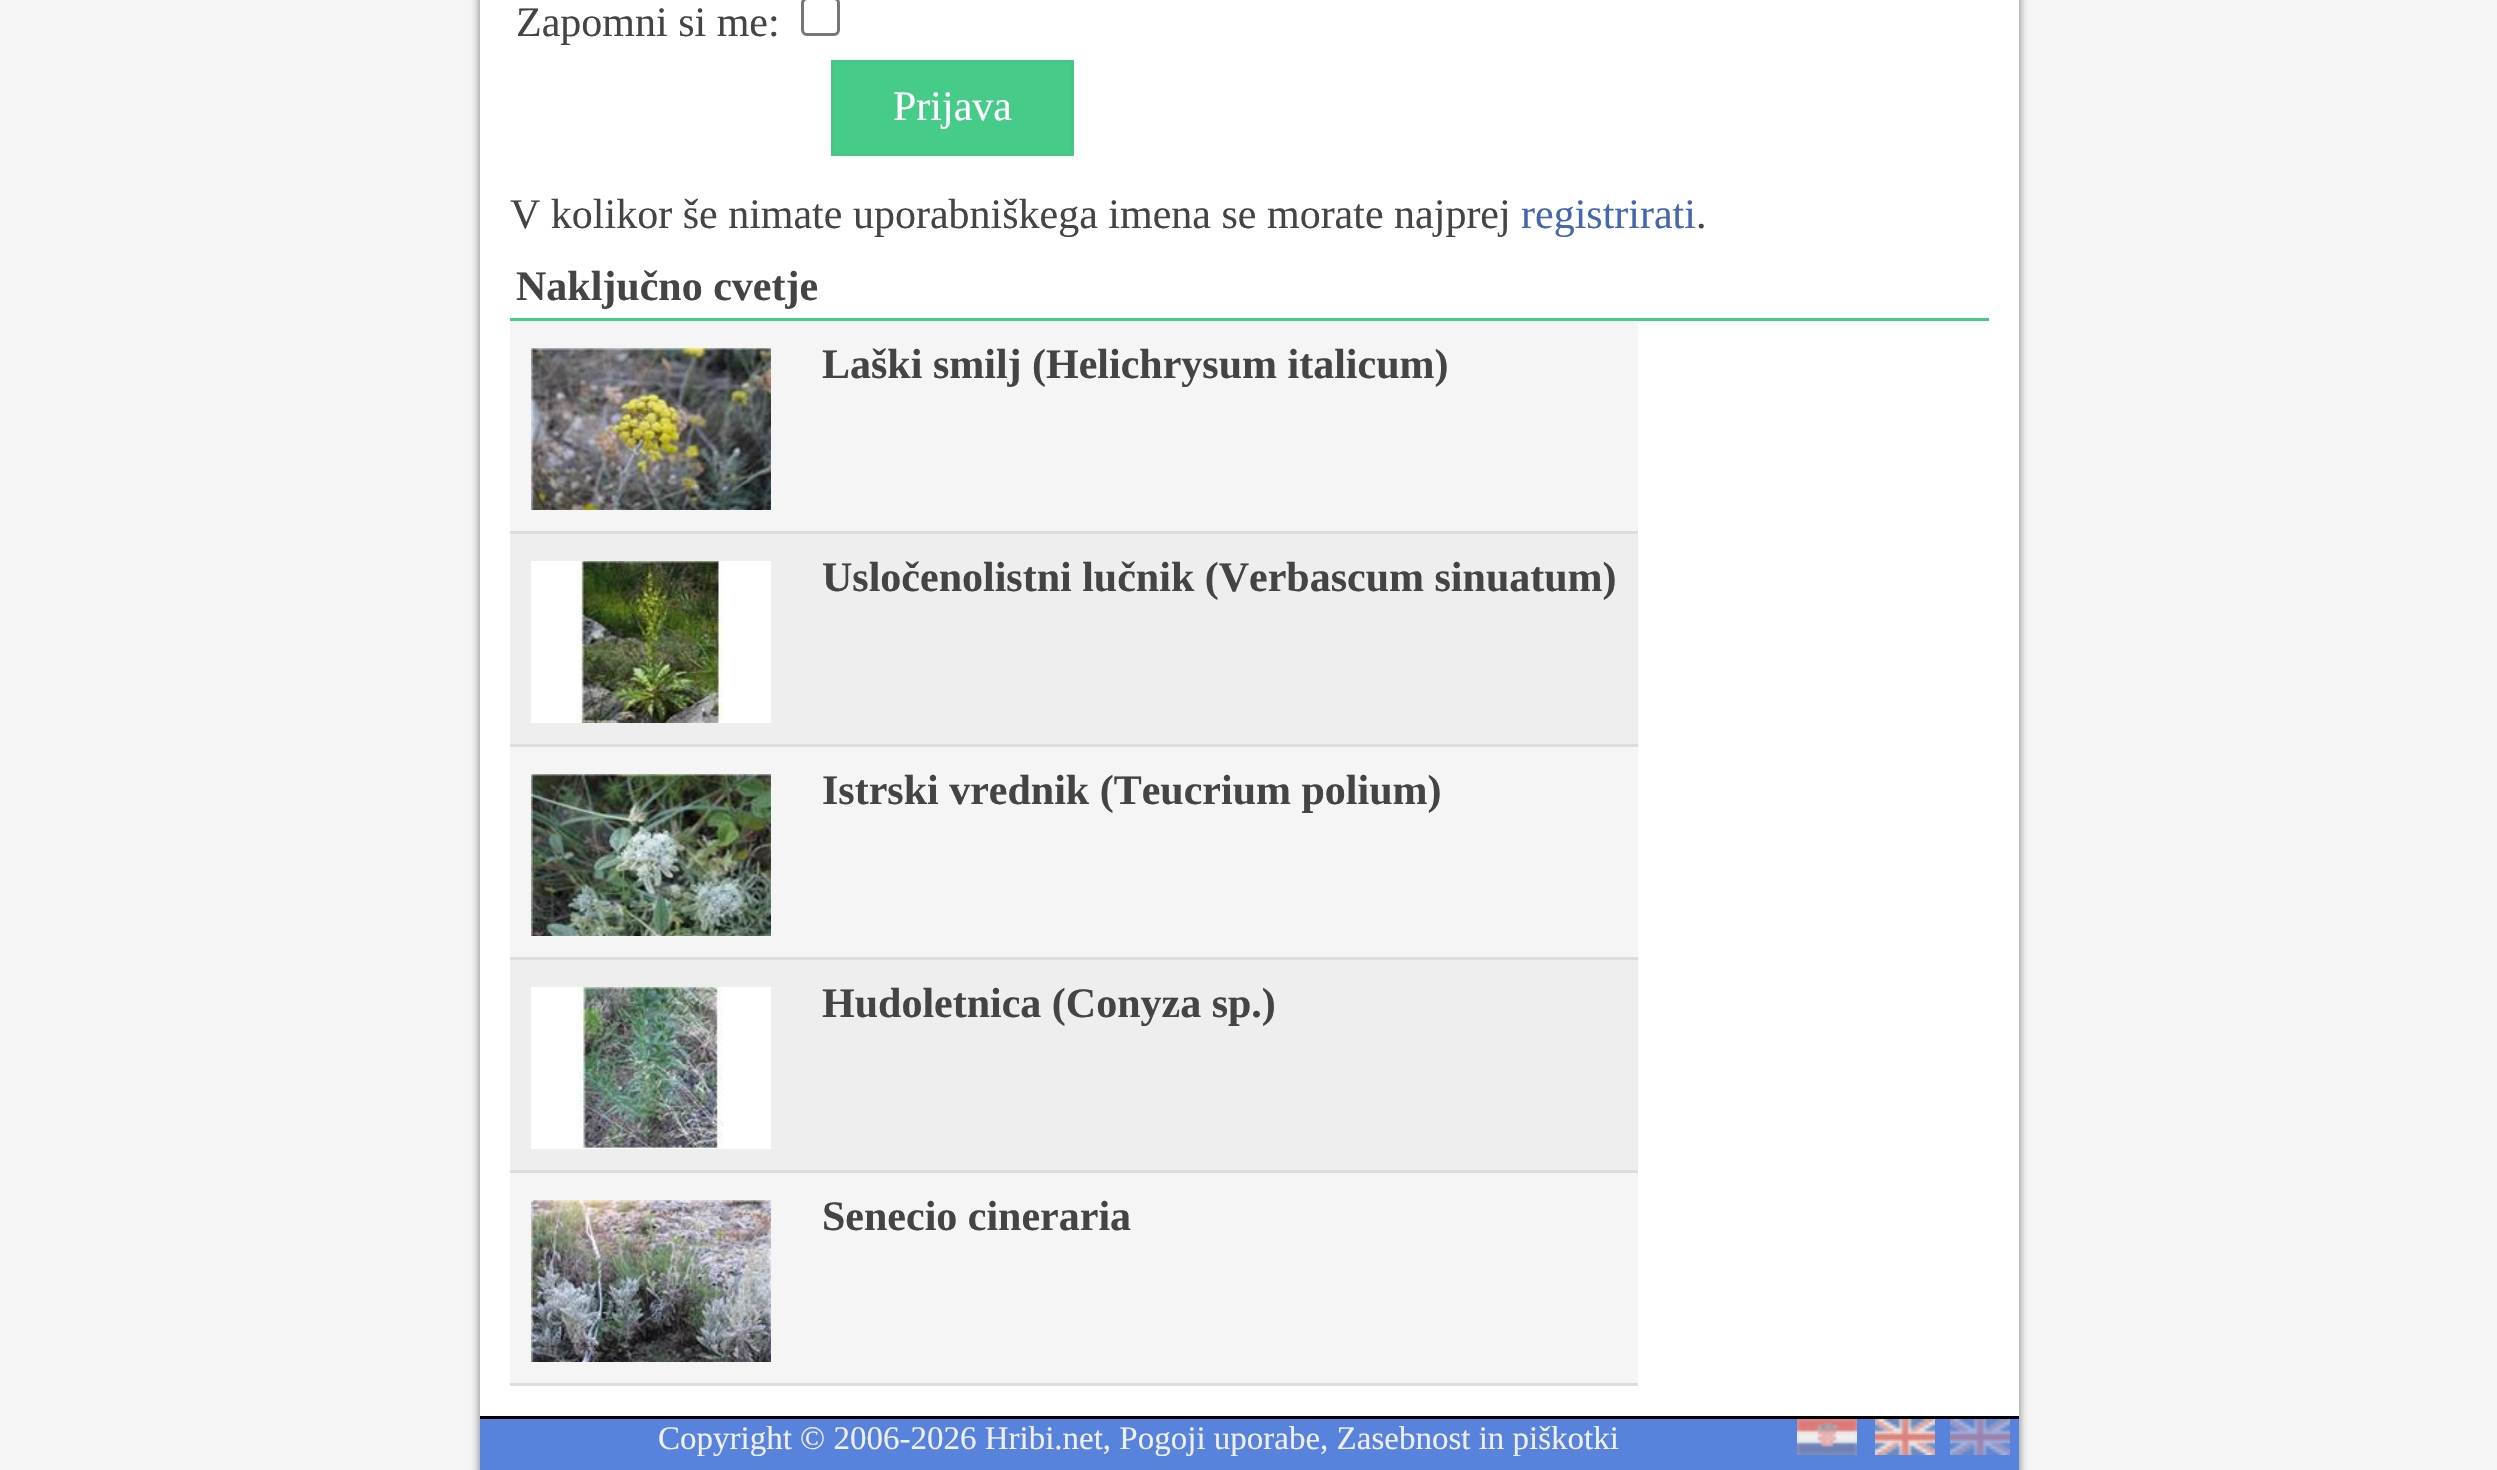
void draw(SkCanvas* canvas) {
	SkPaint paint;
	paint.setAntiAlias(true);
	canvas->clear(0xfff5f5f5);
	paint.setColor(0xff777777);
	paint.setMaskFilter(SkMaskFilter::MakeBlur(kNormal_SkBlurStyle, 4.5));
	canvas->drawRect(SkRect::MakeXYWH(480, -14, 1539, 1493), paint);
	paint.setMaskFilter(nullptr);
	paint.setColor(0xffffffff);
	canvas->drawRect(SkRect::MakeXYWH(480, 0, 1539, 1416), paint);
	SkFont f1(fontMgr->matchFamilyStyle("Liberation Serif", SkFontStyle::Normal()), 42);
	f1.setSubpixel(true);
	paint.setColor(0xff444444);
	canvas->drawString("Zapomni si me:", 516, 36, f1, paint);
	paint.setStroke(true);
	paint.setStrokeWidth(3);
	paint.setColor(0xff767676);
	canvas->drawRoundRect(SkRect::MakeXYWH(802.5, -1.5, 36, 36), 4.5, 4.5, paint);
	paint.setStroke(false);
	paint.setColor(0xff47cb89);
	canvas->drawRect(SkRect::MakeXYWH(832.5, 61.5, 240, 93), paint);
	paint.setStroke(true);
	paint.setColor(0xff45c686);
	canvas->drawRect(SkRect::MakeXYWH(832.5, 61.5, 240, 93), paint);
	paint.setStroke(false);
	paint.setColor(0xffffffff);
	canvas->drawString("Prijava", 893, 120, f1, paint);
	paint.setColor(0xff444444);
	canvas->drawString("V kolikor še nimate uporabniškega imena se morate najprej", 510, 228, f1, paint);
	paint.setColor(0xff4567ae);
	canvas->drawString("registrirati", 1521, 228, f1, paint);
	paint.setColor(0xff444444);
	canvas->drawString(".", 1696, 228, f1, paint);
	paint.setColor(0xff47cb89);
	canvas->drawRect(SkRect::MakeXYWH(510, 318, 1479, 3), paint);
	SkFont f2(fontMgr->matchFamilyStyle("Liberation Serif", SkFontStyle::Bold()), 42);
	f2.setSubpixel(true);
	paint.setColor(0xff444444);
	canvas->drawString("Naključno cvetje", 516, 300, f2, paint);
	paint.setColor(0xfff5f5f5);
	canvas->drawRect(SkRect::MakeXYWH(510, 321, 1128, 210), paint);
	paint.setColor(0xffdddddd);
	canvas->drawRect(SkRect::MakeXYWH(510, 531, 1128, 3), paint);
	canvas->drawImageRect(SkImages::DeferredFromEncodedData(SkData::MakeFromFileName("img1.png")), SkRect::MakeXYWH(531, 348, 240, 162), SkSamplingOptions());
	paint.setColor(0xff444444);
	canvas->drawString("Laški smilj (Helichrysum italicum)", 822, 378, f2, paint);
	paint.setColor(0xffeeeeee);
	canvas->drawRect(SkRect::MakeXYWH(510, 534, 1128, 210), paint);
	paint.setColor(0xffdddddd);
	canvas->drawRect(SkRect::MakeXYWH(510, 744, 1128, 3), paint);
	canvas->drawImageRect(SkImages::DeferredFromEncodedData(SkData::MakeFromFileName("img2.png")), SkRect::MakeXYWH(531, 561, 240, 162), SkSamplingOptions());
	paint.setColor(0xff444444);
	canvas->drawString("Usločenolistni lučnik (Verbascum sinuatum)", 822, 591, f2, paint);
	paint.setColor(0xfff5f5f5);
	canvas->drawRect(SkRect::MakeXYWH(510, 747, 1128, 210), paint);
	paint.setColor(0xffdddddd);
	canvas->drawRect(SkRect::MakeXYWH(510, 957, 1128, 3), paint);
	canvas->drawImageRect(SkImages::DeferredFromEncodedData(SkData::MakeFromFileName("img3.png")), SkRect::MakeXYWH(531, 774, 240, 162), SkSamplingOptions());
	paint.setColor(0xff444444);
	canvas->drawString("Istrski vrednik (Teucrium polium)", 822, 804, f2, paint);
	paint.setColor(0xffeeeeee);
	canvas->drawRect(SkRect::MakeXYWH(510, 960, 1128, 210), paint);
	paint.setColor(0xffdddddd);
	canvas->drawRect(SkRect::MakeXYWH(510, 1170, 1128, 3), paint);
	canvas->drawImageRect(SkImages::DeferredFromEncodedData(SkData::MakeFromFileName("img4.png")), SkRect::MakeXYWH(531, 987, 240, 162), SkSamplingOptions());
	paint.setColor(0xff444444);
	canvas->drawString("Hudoletnica (Conyza sp.)", 822, 1017, f2, paint);
	paint.setColor(0xfff5f5f5);
	canvas->drawRect(SkRect::MakeXYWH(510, 1173, 1128, 210), paint);
	paint.setColor(0xffdddddd);
	canvas->drawRect(SkRect::MakeXYWH(510, 1383, 1128, 3), paint);
	canvas->drawImageRect(SkImages::DeferredFromEncodedData(SkData::MakeFromFileName("img5.png")), SkRect::MakeXYWH(531, 1200, 240, 162), SkSamplingOptions());
	paint.setColor(0xff444444);
	canvas->drawString("Senecio cineraria", 822, 1230, f2, paint);
	paint.setColor(0xff5883dd);
	canvas->drawRect(SkRect::MakeXYWH(480, 1419, 1539, 51), paint);
	paint.setColor(0xff000000);
	canvas->drawRect(SkRect::MakeXYWH(480, 1416, 1539, 3), paint);
	SkFont f3(fontMgr->matchFamilyStyle("Liberation Serif", SkFontStyle::Normal()), 33);
	f3.setSubpixel(true);
	paint.setColor(0xffeeeeee);
	canvas->drawString("Copyright © 2006-2026 Hribi.net, Pogoji uporabe, Zasebnost in piškotki", 658, 1449, f3, paint);
	canvas->drawImageRect(SkImages::DeferredFromEncodedData(SkData::MakeFromFileName("img6.png")), SkRect::MakeXYWH(1797, 1419, 60, 36), SkSamplingOptions());
	canvas->drawImageRect(SkImages::DeferredFromEncodedData(SkData::MakeFromFileName("img7.png")), SkRect::MakeXYWH(1875, 1419, 60, 36), SkSamplingOptions());
	canvas->drawImageRect(SkImages::DeferredFromEncodedData(SkData::MakeFromFileName("img8.png")), SkRect::MakeXYWH(1950, 1419, 60, 36), SkSamplingOptions());
}
